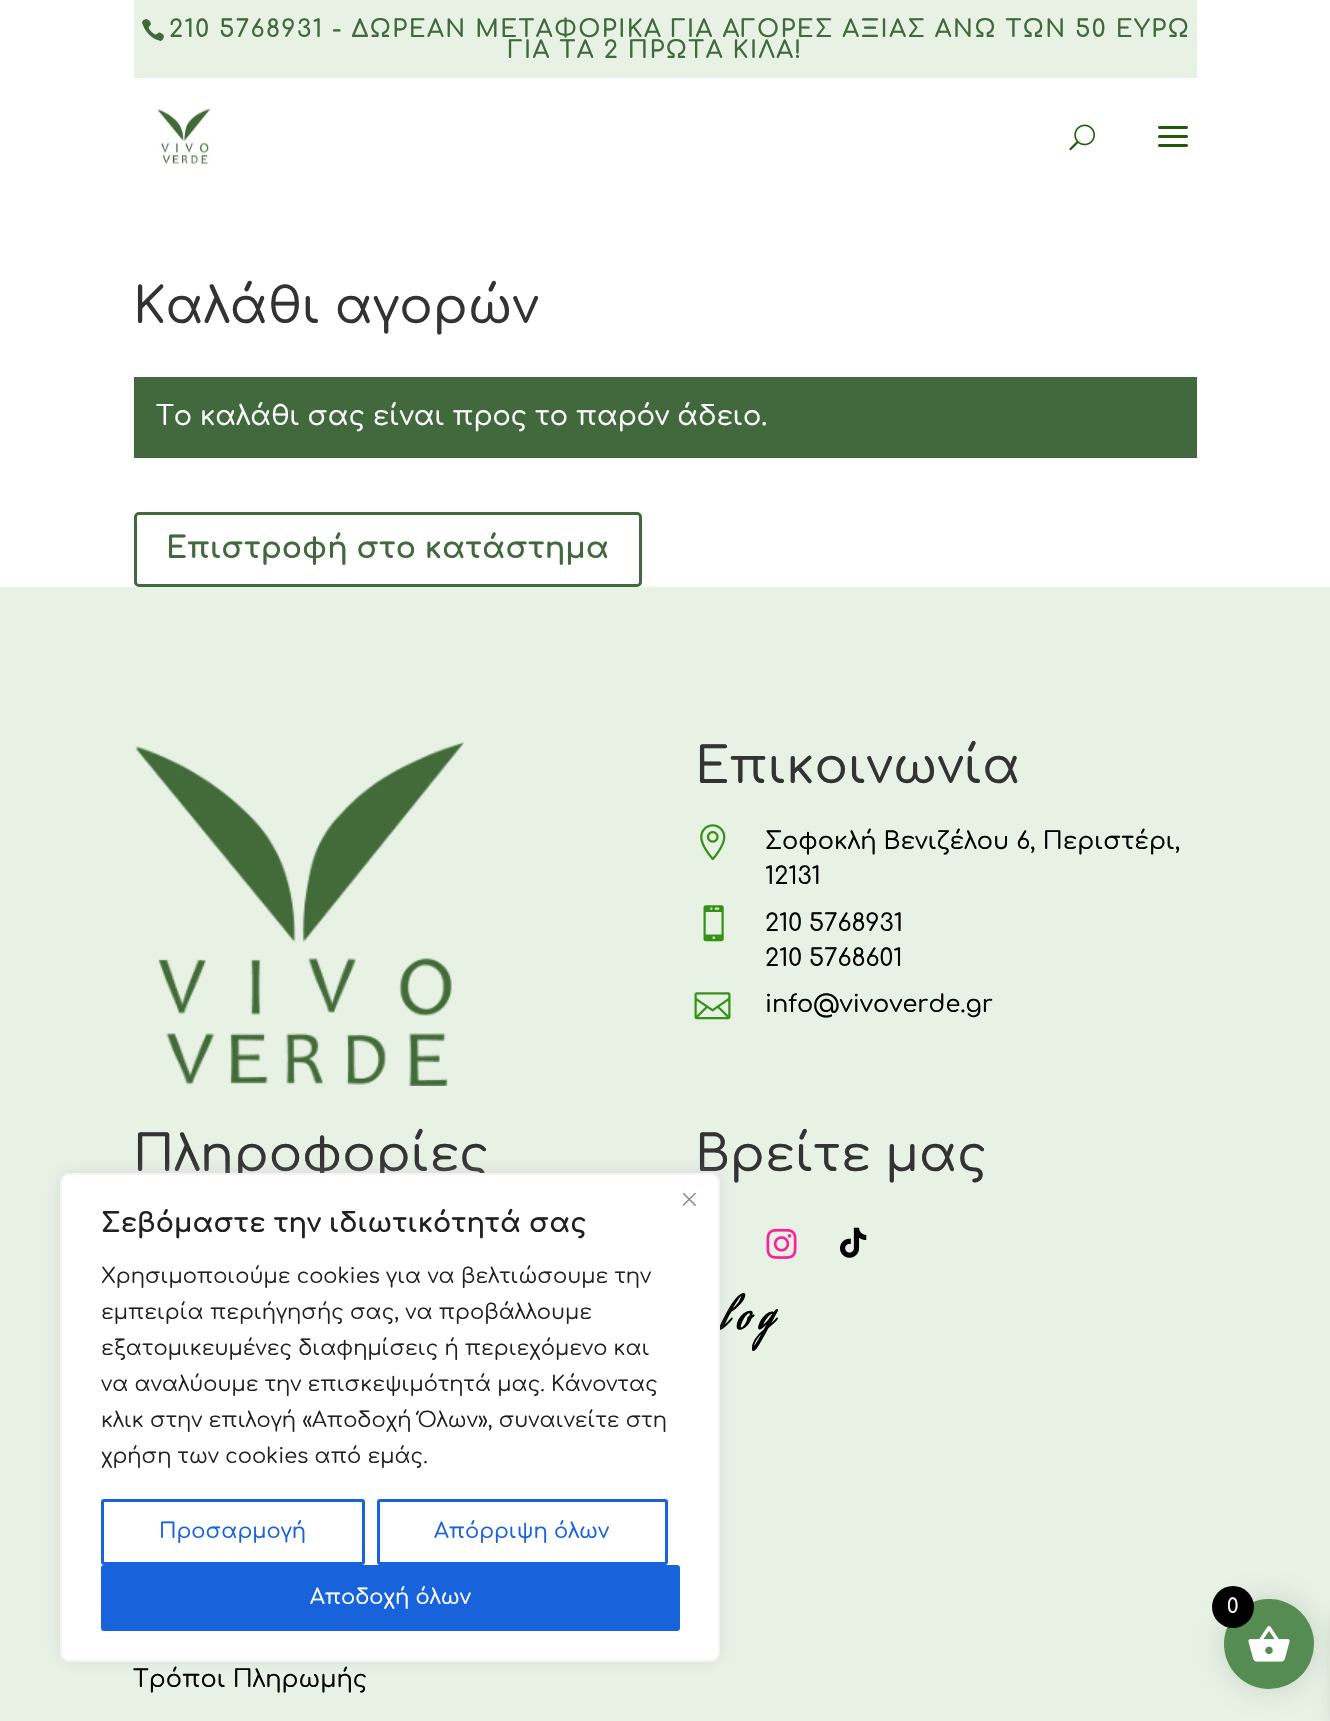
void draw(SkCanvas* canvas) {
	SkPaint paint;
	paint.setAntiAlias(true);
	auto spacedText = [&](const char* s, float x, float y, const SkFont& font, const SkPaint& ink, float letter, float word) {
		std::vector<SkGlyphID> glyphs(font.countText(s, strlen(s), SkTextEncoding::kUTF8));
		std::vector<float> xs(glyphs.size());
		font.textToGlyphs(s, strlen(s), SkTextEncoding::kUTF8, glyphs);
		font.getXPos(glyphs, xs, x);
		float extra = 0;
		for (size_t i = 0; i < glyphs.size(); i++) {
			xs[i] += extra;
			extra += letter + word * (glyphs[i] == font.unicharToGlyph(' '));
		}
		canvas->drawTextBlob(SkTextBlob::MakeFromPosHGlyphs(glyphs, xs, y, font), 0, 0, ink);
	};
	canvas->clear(0xffffffff);
	paint.setColor(0xffe7f2e5);
	canvas->drawRect(SkRect::MakeXYWH(134, 0, 1063, 78), paint);
	canvas->drawImageRect(SkImages::DeferredFromEncodedData(SkData::MakeFromFileName("img1.png")), SkRect::MakeXYWH(142, 19, 22, 22), SkSamplingOptions());
	SkFont f1(fontMgr->matchFamilyStyle("Comfortaa", SkFontStyle(600, SkFontStyle::kNormal_Width, SkFontStyle::kUpright_Slant)), 24);
	f1.setSubpixel(true);
	paint.setColor(0xff41693d);
	spacedText("210 5768931 - ΔΩΡΕΑΝ ΜΕΤΑΦΟΡΙΚΑ ΓΙΑ ΑΓΟΡΕΣ ΑΞΙΑΣ ΑΝΩ ΤΩΝ 50 ΕΥΡΩ", 169, 37, f1, paint, 1.5, 0);
	spacedText("ΓΙΑ ΤΑ 2 ΠΡΩΤΑ ΚΙΛΑ!", 508, 58, f1, paint, 1.5, 0);
	canvas->drawImageRect(SkImages::DeferredFromEncodedData(SkData::MakeFromFileName("img2.png")), SkRect::MakeXYWH(157, 108, 54, 57), SkSamplingOptions());
	canvas->drawImageRect(SkImages::DeferredFromEncodedData(SkData::MakeFromFileName("img3.png")), SkRect::MakeXYWH(1069, 124, 26, 27), SkSamplingOptions());
	canvas->drawImageRect(SkImages::DeferredFromEncodedData(SkData::MakeFromFileName("img4.png")), SkRect::MakeXYWH(1158, 126, 30, 21), SkSamplingOptions());
	SkFont f2(fontMgr->matchFamilyStyle("Comfortaa", SkFontStyle(500, SkFontStyle::kNormal_Width, SkFontStyle::kUpright_Slant)), 49.5);
	f2.setSubpixel(true);
	paint.setColor(0xff333333);
	canvas->drawString("Καλάθι αγορών", 133, 323, f2, paint);
	paint.setColor(0xff41693d);
	canvas->drawRect(SkRect::MakeXYWH(134, 377, 1063, 81), paint);
	SkFont f3(fontMgr->matchFamilyStyle("Comfortaa", SkFontStyle(500, SkFontStyle::kNormal_Width, SkFontStyle::kUpright_Slant)), 27);
	f3.setSubpixel(true);
	paint.setColor(0xffffffff);
	canvas->drawString("Το καλάθι σας είναι προς το παρόν άδειο.", 156, 425, f3, paint);
	paint.setStroke(true);
	paint.setStrokeWidth(3);
	paint.setColor(0xff41693d);
	canvas->drawRoundRect(SkRect::MakeXYWH(135.5, 513.5, 505, 72), 3.5, 3.5, paint);
	SkFont f4(fontMgr->matchFamilyStyle("Comfortaa", SkFontStyle::Bold()), 30);
	f4.setSubpixel(true);
	paint.setStroke(false);
	canvas->drawString("Επιστροφή στο κατάστημα", 166, 558, f4, paint);
	paint.setColor(0xffe7f2e5);
	canvas->drawRect(SkRect::MakeXYWH(0, 587, 1330, 1134), paint);
	canvas->drawImageRect(SkImages::DeferredFromEncodedData(SkData::MakeFromFileName("img5.png")), SkRect::MakeXYWH(135, 742, 329, 344), SkSamplingOptions());
	paint.setColor(0xff333333);
	canvas->drawString("Επικοινωνία", 695, 783, f2, paint);
	canvas->drawImageRect(SkImages::DeferredFromEncodedData(SkData::MakeFromFileName("img6.png")), SkRect::MakeXYWH(700, 824, 26, 37), SkSamplingOptions());
	SkFont f5(fontMgr->matchFamilyStyle("Comfortaa", SkFontStyle(500, SkFontStyle::kNormal_Width, SkFontStyle::kUpright_Slant)), 24);
	f5.setSubpixel(true);
	paint.setColor(0xff000000);
	canvas->drawString("Σοφοκλή Βενιζέλου 6, Περιστέρι,", 765, 849, f5, paint);
	canvas->drawString("12131", 765, 884, f5, paint);
	canvas->drawImageRect(SkImages::DeferredFromEncodedData(SkData::MakeFromFileName("img7.png")), SkRect::MakeXYWH(703, 905, 21, 37), SkSamplingOptions());
	canvas->drawString("210 5768931", 765, 931, f5, paint);
	canvas->drawString("210 5768601", 765, 966, f5, paint);
	canvas->drawImageRect(SkImages::DeferredFromEncodedData(SkData::MakeFromFileName("img8.png")), SkRect::MakeXYWH(694, 992, 37, 28), SkSamplingOptions());
	canvas->drawString("info@vivoverde.gr", 765, 1012, f5, paint);
	paint.setColor(0xff333333);
	canvas->drawString("Πληροφορίες", 133, 1171, f2, paint);
	canvas->drawString("Βρείτε μας", 695, 1171, f2, paint);
	canvas->drawImageRect(SkImages::DeferredFromEncodedData(SkData::MakeFromFileName("img9.png")), SkRect::MakeXYWH(766, 1228, 31, 31), SkSamplingOptions());
	canvas->drawImageRect(SkImages::DeferredFromEncodedData(SkData::MakeFromFileName("img10.png")), SkRect::MakeXYWH(840, 1227, 27, 31), SkSamplingOptions());
	SkFont f6(fontMgr->matchFamilyStyle("Aguafina Script", SkFontStyle::Bold()), 38);
	f6.setSubpixel(true);
	paint.setColor(0xff000000);
	spacedText("log", 720, 1329, f6, paint, 9, 0);
	canvas->drawString("Τρόποι Πληρωμής", 133, 1687, f5, paint);
	paint.setColor(0x4dacabab);
	paint.setMaskFilter(SkMaskFilter::MakeBlur(kNormal_SkBlurStyle, 7.5));
	canvas->drawRoundRect(SkRect::MakeXYWH(60, 1172, 660, 489), 9, 9, paint);
	paint.setMaskFilter(nullptr);
	paint.setColor(0xffffffff);
	canvas->drawRoundRect(SkRect::MakeXYWH(61, 1174, 658, 487), 8, 8, paint);
	paint.setStroke(true);
	paint.setStrokeWidth(2);
	paint.setColor(0xfff4f4f4);
	canvas->drawRoundRect(SkRect::MakeXYWH(61, 1174, 658, 487), 8, 8, paint);
	canvas->drawImageRect(SkImages::DeferredFromEncodedData(SkData::MakeFromFileName("img11.png")), SkRect::MakeXYWH(683, 1193, 13, 13), SkSamplingOptions());
	SkFont f7(fontMgr->matchFamilyStyle("Comfortaa", SkFontStyle::Bold()), 27);
	f7.setSubpixel(true);
	paint.setStroke(false);
	paint.setColor(0xff212121);
	canvas->drawString("Σεβόμαστε την ιδιωτικότητά σας", 101, 1232, f7, paint);
	SkFont f8(fontMgr->matchFamilyStyle("Comfortaa", SkFontStyle::Normal()), 21);
	f8.setSubpixel(true);
	canvas->drawString("Χρησιμοποιούμε cookies για να βελτιώσουμε την", 101, 1283, f8, paint);
	canvas->drawString("εμπειρία περιήγησής σας, να προβάλλουμε", 101, 1319, f8, paint);
	canvas->drawString("εξατομικευμένες διαφημίσεις ή περιεχόμενο και", 101, 1355, f8, paint);
	canvas->drawString("να αναλύουμε την επισκεψιμότητά μας. Κάνοντας", 101, 1391, f8, paint);
	canvas->drawString("κλικ στην επιλογή «Αποδοχή Όλων», συναινείτε στη", 101, 1427, f8, paint);
	canvas->drawString("χρήση των cookies από εμάς.", 101, 1463, f8, paint);
	paint.setStroke(true);
	paint.setStrokeWidth(3);
	paint.setColor(0xff1863dc);
	canvas->drawRoundRect(SkRect::MakeXYWH(102.5, 1500.5, 261, 63), 1.5, 1.5, paint);
	SkFont f9(fontMgr->matchFamilyStyle("Comfortaa", SkFontStyle(500, SkFontStyle::kNormal_Width, SkFontStyle::kUpright_Slant)), 21);
	f9.setSubpixel(true);
	paint.setStroke(false);
	canvas->drawString("Προσαρμογή", 159, 1538, f9, paint);
	paint.setStroke(true);
	canvas->drawRoundRect(SkRect::MakeXYWH(378.5, 1500.5, 288, 63), 1.5, 1.5, paint);
	paint.setStroke(false);
	canvas->drawString("Απόρριψη όλων", 434, 1538, f9, paint);
	canvas->drawRoundRect(SkRect::MakeXYWH(102.5, 1566.5, 576, 63), 1.5, 1.5, paint);
	paint.setStroke(true);
	canvas->drawRoundRect(SkRect::MakeXYWH(102.5, 1566.5, 576, 63), 1.5, 1.5, paint);
	paint.setStroke(false);
	paint.setColor(0xffffffff);
	canvas->drawString("Αποδοχή όλων", 310, 1604, f9, paint);
	paint.setColor(0x1a000000);
	paint.setMaskFilter(SkMaskFilter::MakeBlur(kNormal_SkBlurStyle, 11));
	canvas->drawRoundRect(SkRect::MakeXYWH(1221, 1596, 96, 96), 48, 48, paint);
	paint.setMaskFilter(nullptr);
	paint.setMaskFilter(SkMaskFilter::MakeBlur(kNormal_SkBlurStyle, 7.5));
	canvas->drawRect(SkRect::MakeXYWH(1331, 1619, 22, 102), paint);
	paint.setMaskFilter(nullptr);
	paint.setColor(0xff568c51);
	canvas->drawCircle(1269, 1644, 45, paint);
	canvas->drawImageRect(SkImages::DeferredFromEncodedData(SkData::MakeFromFileName("img12.png")), SkRect::MakeXYWH(1248, 1626, 42, 36), SkSamplingOptions());
	paint.setColor(0xff000000);
	canvas->drawCircle(1233, 1607, 21, paint);
	SkFont f10(fontMgr->matchFamilyStyle("Comfortaa", SkFontStyle(500, SkFontStyle::kNormal_Width, SkFontStyle::kUpright_Slant)), 20);
	f10.setSubpixel(true);
	paint.setColor(0xffffffff);
	canvas->drawString("0", 1227, 1613, f10, paint);
}
